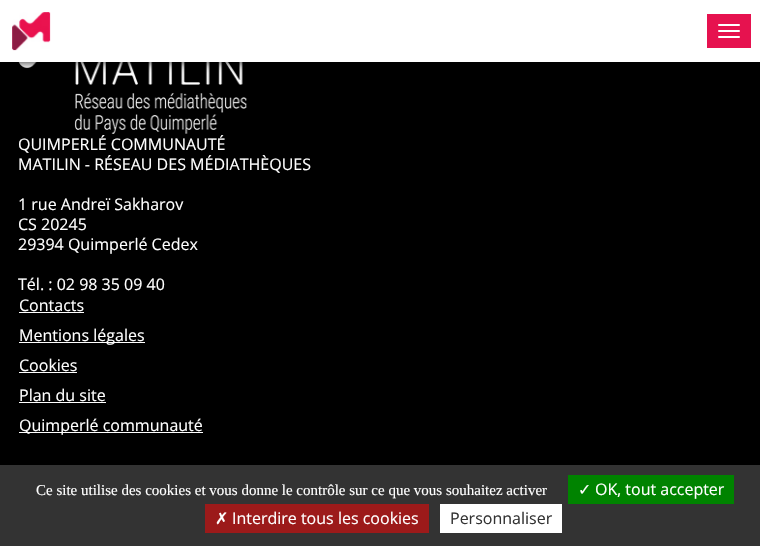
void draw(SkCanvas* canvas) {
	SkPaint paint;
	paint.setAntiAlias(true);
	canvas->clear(0xff000000);
	canvas->drawImageRect(SkImages::DeferredFromEncodedData(SkData::MakeFromFileName("img2.png")), SkRect::MakeXYWH(18, 62, 229, 72), SkSamplingOptions());
	paint.setColor(0xe6000000);
	paint.setMaskFilter(SkMaskFilter::MakeBlur(kNormal_SkBlurStyle, 5));
	canvas->drawRect(SkRect::MakeXYWH(0, 0, 760, 62), paint);
	paint.setMaskFilter(nullptr);
	paint.setColor(0xffffffff);
	canvas->drawRect(SkRect::MakeXYWH(0, 0, 760, 62), paint);
	canvas->drawImageRect(SkImages::DeferredFromEncodedData(SkData::MakeFromFileName("img1.png")), SkRect::MakeXYWH(12, 12, 39, 39), SkSamplingOptions());
	paint.setColor(0xffe6124f);
	canvas->drawRect(SkRect::MakeXYWH(707, 14, 44, 34), paint);
	paint.setColor(0xffffffff);
	canvas->drawRoundRect(SkRect::MakeXYWH(718, 24, 22, 2), 1, 1, paint);
	canvas->drawRoundRect(SkRect::MakeXYWH(718, 30, 22, 2), 1, 1, paint);
	canvas->drawRoundRect(SkRect::MakeXYWH(718, 36, 22, 2), 1, 1, paint);
	SkFont f1(fontMgr->matchFamilyStyle("Open Sans", SkFontStyle::Normal()), 16);
	f1.setSubpixel(true);
	canvas->drawString("QUIMPERLÉ COMMUNAUTÉ", 18, 150, f1, paint);
	canvas->drawString("MATILIN - RÉSEAU DES MÉDIATHÈQUES", 18, 170, f1, paint);
	canvas->drawString("1 rue Andreï Sakharov", 18, 210, f1, paint);
	canvas->drawString("CS 20245", 18, 230, f1, paint);
	canvas->drawString("29394 Quimperlé Cedex", 18, 250, f1, paint);
	canvas->drawString("Tél. : 02 98 35 09 40", 18, 290, f1, paint);
	canvas->drawString("Contacts", 19, 311, f1, paint);
	canvas->drawRect(SkRect::MakeXYWH(19, 312, 65, 1), paint);
	canvas->drawRect(SkRect::MakeXYWH(19, 342, 126, 1), paint);
	canvas->drawString("Mentions légales", 19, 341, f1, paint);
	canvas->drawString("Cookies", 19, 371, f1, paint);
	canvas->drawRect(SkRect::MakeXYWH(19, 372, 58, 1), paint);
	canvas->drawString("Plan du site", 19, 401, f1, paint);
	canvas->drawRect(SkRect::MakeXYWH(19, 402, 87, 1), paint);
	canvas->drawRect(SkRect::MakeXYWH(19, 432, 184, 1), paint);
	canvas->drawString("Quimperlé communauté", 19, 431, f1, paint);
	paint.setColor(0xff333333);
	canvas->drawRect(SkRect::MakeXYWH(0, 465, 760, 81), paint);
	SkFont f2(fontMgr->matchFamilyStyle("Liberation Serif", SkFontStyle::Normal()), 15);
	f2.setSubpixel(true);
	paint.setColor(0xffffffff);
	canvas->drawString("Ce site utilise des cookies et vous donne le contrôle sur ce que vous souhaitez activer", 36, 495, f2, paint);
	paint.setColor(0xff008300);
	canvas->drawRect(SkRect::MakeXYWH(568, 475, 166, 29), paint);
	SkFont f3(fontMgr->matchFamilyStyle("DejaVu Sans", SkFontStyle::Normal()), 16);
	f3.setSubpixel(true);
	paint.setColor(0xffffffff);
	canvas->drawString("✓", 578, 495, f3, paint);
	canvas->drawString("OK, tout accepter", 595, 495, f1, paint);
	paint.setColor(0xff9c1a1a);
	canvas->drawRect(SkRect::MakeXYWH(205, 504, 224, 29), paint);
	paint.setColor(0xffffffff);
	canvas->drawString("✗", 215, 524, f3, paint);
	canvas->drawString("Interdire tous les cookies", 232, 524, f1, paint);
	canvas->drawRect(SkRect::MakeXYWH(440, 504, 122, 29), paint);
	paint.setColor(0xff333333);
	canvas->drawString("Personnaliser", 450, 524, f1, paint);
}
